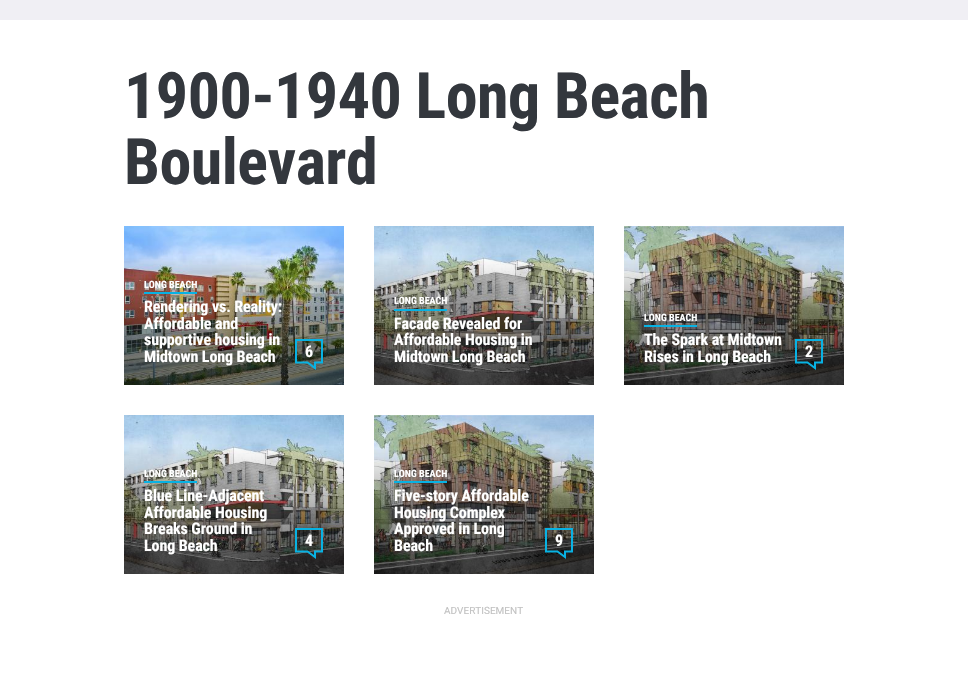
void draw(SkCanvas* canvas) {
	SkPaint paint;
	paint.setAntiAlias(true);
	auto spacedText = [&](const char* s, float x, float y, const SkFont& font, const SkPaint& ink, float letter, float word) {
		std::vector<SkGlyphID> glyphs(font.countText(s, strlen(s), SkTextEncoding::kUTF8));
		std::vector<float> xs(glyphs.size());
		font.textToGlyphs(s, strlen(s), SkTextEncoding::kUTF8, glyphs);
		font.getXPos(glyphs, xs, x);
		float extra = 0;
		for (size_t i = 0; i < glyphs.size(); i++) {
			xs[i] += extra;
			extra += letter + word * (glyphs[i] == font.unicharToGlyph(' '));
		}
		canvas->drawTextBlob(SkTextBlob::MakeFromPosHGlyphs(glyphs, xs, y, font), 0, 0, ink);
	};
	auto svgPath = [&](const char* data, bool evenOdd = false) {
		SkPath result = *SkParsePath::FromSVGString(data);
		if (evenOdd) result.setFillType(SkPathFillType::kEvenOdd);
		return result;
	};
	canvas->clear(0xffffffff);
	paint.setColor(0xfff0eff4);
	canvas->drawRect(SkRect::MakeXYWH(0, 0, 968, 20), paint);
	SkFont f1(fontMgr->matchFamilyStyle("Roboto Condensed", SkFontStyle::Bold()), 64);
	f1.setSubpixel(true);
	paint.setColor(0xff33373d);
	spacedText("1900-1940 Long Beach", 124, 118, f1, paint, -0.5, 0);
	spacedText("Boulevard", 124, 184, f1, paint, -0.5, 0);
	canvas->drawImageRect(SkImages::DeferredFromEncodedData(SkData::MakeFromFileName("img1.png")), SkRect::MakeXYWH(124, 226, 220, 159), SkSamplingOptions());
	paint.setColor(0xff08b2e3);
	canvas->drawRect(SkRect::MakeXYWH(144, 292, 53, 2), paint);
	SkFont f2(fontMgr->matchFamilyStyle("Roboto Condensed", SkFontStyle::Bold()), 10);
	f2.setSubpixel(true);
	paint.setColor(0xffffffff);
	canvas->drawString("LONG BEACH", 144, 288, f2, paint);
	SkFont f3(fontMgr->matchFamilyStyle("Roboto Condensed", SkFontStyle::Bold()), 16);
	f3.setSubpixel(true);
	spacedText("Rendering vs. Reality:", 144, 312, f3, paint, -0.1, 0);
	spacedText("Affordable and", 144, 329, f3, paint, -0.1, 0);
	spacedText("supportive housing in", 144, 345, f3, paint, -0.1, 0);
	spacedText("Midtown Long Beach", 144, 362, f3, paint, -0.1, 0);
	paint.setStroke(true);
	paint.setStrokeWidth(2);
	paint.setColor(0xff08b2e3);
	canvas->drawPath(svgPath("M296 340V362.5H307.5L315 368V362.5H322V340Z"), paint);
	paint.setStroke(false);
	paint.setColor(0xffffffff);
	canvas->drawString("6", 305, 357, f3, paint);
	canvas->drawImageRect(SkImages::DeferredFromEncodedData(SkData::MakeFromFileName("img2.png")), SkRect::MakeXYWH(374, 226, 220, 159), SkSamplingOptions());
	paint.setColor(0xff08b2e3);
	canvas->drawRect(SkRect::MakeXYWH(394, 309, 53, 2), paint);
	paint.setColor(0xffffffff);
	canvas->drawString("LONG BEACH", 394, 304, f2, paint);
	spacedText("Facade Revealed for", 394, 329, f3, paint, -0.1, 0);
	spacedText("Affordable Housing in", 394, 345, f3, paint, -0.1, 0);
	spacedText("Midtown Long Beach", 394, 362, f3, paint, -0.1, 0);
	canvas->drawImageRect(SkImages::DeferredFromEncodedData(SkData::MakeFromFileName("img3.png")), SkRect::MakeXYWH(624, 226, 220, 159), SkSamplingOptions());
	paint.setColor(0xff08b2e3);
	canvas->drawRect(SkRect::MakeXYWH(644, 325, 53, 2), paint);
	paint.setColor(0xffffffff);
	canvas->drawString("LONG BEACH", 644, 321, f2, paint);
	spacedText("The Spark at Midtown", 644, 345, f3, paint, -0.1, 0);
	spacedText("Rises in Long Beach", 644, 362, f3, paint, -0.1, 0);
	paint.setStroke(true);
	paint.setColor(0xff08b2e3);
	canvas->drawPath(svgPath("M796 340V362.5H807.5L815 368V362.5H822V340Z"), paint);
	paint.setStroke(false);
	paint.setColor(0xffffffff);
	canvas->drawString("2", 805, 357, f3, paint);
	canvas->drawImageRect(SkImages::DeferredFromEncodedData(SkData::MakeFromFileName("img4.png")), SkRect::MakeXYWH(124, 415, 220, 159), SkSamplingOptions());
	paint.setColor(0xff08b2e3);
	canvas->drawRect(SkRect::MakeXYWH(144, 481, 53, 2), paint);
	paint.setColor(0xffffffff);
	canvas->drawString("LONG BEACH", 144, 477, f2, paint);
	spacedText("Blue Line-Adjacent", 144, 501, f3, paint, -0.1, 0);
	spacedText("Affordable Housing", 144, 518, f3, paint, -0.1, 0);
	spacedText("Breaks Ground in", 144, 534, f3, paint, -0.1, 0);
	spacedText("Long Beach", 144, 551, f3, paint, -0.1, 0);
	paint.setStroke(true);
	paint.setColor(0xff08b2e3);
	canvas->drawPath(svgPath("M296 529V551.5H307.5L315 557V551.5H322V529Z"), paint);
	paint.setStroke(false);
	paint.setColor(0xffffffff);
	canvas->drawString("4", 305, 546, f3, paint);
	canvas->drawImageRect(SkImages::DeferredFromEncodedData(SkData::MakeFromFileName("img3.png")), SkRect::MakeXYWH(374, 415, 220, 159), SkSamplingOptions());
	paint.setColor(0xff08b2e3);
	canvas->drawRect(SkRect::MakeXYWH(394, 481, 53, 2), paint);
	paint.setColor(0xffffffff);
	canvas->drawString("LONG BEACH", 394, 477, f2, paint);
	spacedText("Five-story Affordable", 394, 501, f3, paint, -0.1, 0);
	spacedText("Housing Complex", 394, 518, f3, paint, -0.1, 0);
	spacedText("Approved in Long", 394, 534, f3, paint, -0.1, 0);
	spacedText("Beach", 394, 551, f3, paint, -0.1, 0);
	paint.setStroke(true);
	paint.setColor(0xff08b2e3);
	canvas->drawPath(svgPath("M546 529V551.5H557.5L565 557V551.5H572V529Z"), paint);
	paint.setStroke(false);
	paint.setColor(0xffffffff);
	canvas->drawString("9", 555, 546, f3, paint);
	SkFont f4(fontMgr->matchFamilyStyle("Roboto", SkFontStyle::Normal()), 10);
	f4.setSubpixel(true);
	paint.setColor(0xffc2c2c2);
	canvas->drawString("ADVERTISEMENT", 444, 614, f4, paint);
}
